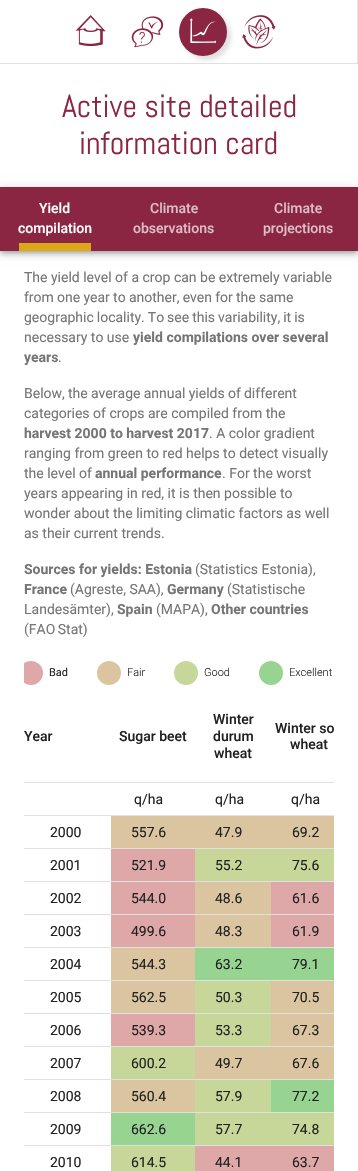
void draw(SkCanvas* canvas) {
	SkPaint paint;
	paint.setAntiAlias(true);
	auto spacedText = [&](const char* s, float x, float y, const SkFont& font, const SkPaint& ink, float letter, float word) {
		std::vector<SkGlyphID> glyphs(font.countText(s, strlen(s), SkTextEncoding::kUTF8));
		std::vector<float> xs(glyphs.size());
		font.textToGlyphs(s, strlen(s), SkTextEncoding::kUTF8, glyphs);
		font.getXPos(glyphs, xs, x);
		float extra = 0;
		for (size_t i = 0; i < glyphs.size(); i++) {
			xs[i] += extra;
			extra += letter + word * (glyphs[i] == font.unicharToGlyph(' '));
		}
		canvas->drawTextBlob(SkTextBlob::MakeFromPosHGlyphs(glyphs, xs, y, font), 0, 0, ink);
	};
	auto svgPath = [&](const char* data, bool evenOdd = false) {
		SkPath result = *SkParsePath::FromSVGString(data);
		if (evenOdd) result.setFillType(SkPathFillType::kEvenOdd);
		return result;
	};
	canvas->clear(0xffffffff);
	paint.setColor(0xffe0e0e0);
	canvas->drawPath(svgPath("M358 0V64L357 63V0Z"), paint);
	paint.setColor(0x1f000000);
	canvas->drawPath(svgPath("M358 64H0V63H357Z"), paint);
	canvas->drawImageRect(SkImages::DeferredFromEncodedData(SkData::MakeFromFileName("img1.png")), SkRect::MakeXYWH(75, 15, 31, 32), SkSamplingOptions());
	canvas->drawImageRect(SkImages::DeferredFromEncodedData(SkData::MakeFromFileName("img2.png")), SkRect::MakeXYWH(131, 16, 33, 32), SkSamplingOptions());
	paint.setColor(0xffe0e0e0);
	paint.setMaskFilter(SkMaskFilter::MakeBlur(kNormal_SkBlurStyle, 2));
	canvas->drawRoundRect(SkRect::MakeXYWH(183, 12, 48, 48), 24, 24, paint);
	paint.setMaskFilter(nullptr);
	paint.setColor(0xff8a2542);
	canvas->drawCircle(203, 32, 24, paint);
	canvas->drawImageRect(SkImages::DeferredFromEncodedData(SkData::MakeFromFileName("img3.png")), SkRect::MakeXYWH(189, 18, 28, 26), SkSamplingOptions());
	canvas->drawImageRect(SkImages::DeferredFromEncodedData(SkData::MakeFromFileName("img4.png")), SkRect::MakeXYWH(242, 15, 34, 34), SkSamplingOptions());
	SkFont f1(fontMgr->matchFamilyStyle("Abel", SkFontStyle::Normal()), 32);
	f1.setSubpixel(true);
	canvas->drawString("Active site detailed", 62, 117, f1, paint);
	canvas->drawString("information card", 79, 154, f1, paint);
	paint.setColor(0x1f000000);
	paint.setMaskFilter(SkMaskFilter::MakeBlur(kNormal_SkBlurStyle, 5));
	canvas->drawRect(SkRect::MakeXYWH(0, 188, 358, 64), paint);
	paint.setMaskFilter(nullptr);
	paint.setColor(0x24000000);
	paint.setMaskFilter(SkMaskFilter::MakeBlur(kNormal_SkBlurStyle, 2.5));
	canvas->drawRect(SkRect::MakeXYWH(0, 191, 358, 64), paint);
	paint.setMaskFilter(nullptr);
	paint.setColor(0x33000000);
	paint.setMaskFilter(SkMaskFilter::MakeBlur(kNormal_SkBlurStyle, 2));
	canvas->drawRect(SkRect::MakeXYWH(1, 190, 356, 62), paint);
	paint.setMaskFilter(nullptr);
	paint.setColor(0xff8a2542);
	canvas->drawRect(SkRect::MakeXYWH(0, 187, 358, 64), paint);
	SkFont f2(fontMgr->matchFamilyStyle("Roboto", SkFontStyle(500, SkFontStyle::kNormal_Width, SkFontStyle::kUpright_Slant)), 14);
	f2.setSubpixel(true);
	paint.setColor(0xffffffff);
	canvas->drawString("Yield", 39, 213, f2, paint);
	canvas->drawString("compilation", 18, 233, f2, paint);
	paint.setColor(0xffdca817);
	canvas->drawRect(SkRect::MakeXYWH(19, 243, 72, 8), paint);
	paint.setColor(0xffdcbec6);
	canvas->drawString("Climate", 150, 213, f2, paint);
	canvas->drawString("observations", 133, 233, f2, paint);
	canvas->drawString("Climate", 274, 213, f2, paint);
	canvas->drawString("projections", 263, 233, f2, paint);
	SkFont f3(fontMgr->matchFamilyStyle("Roboto", SkFontStyle::Normal()), 14);
	f3.setSubpixel(true);
	paint.setColor(0xff757575);
	canvas->drawString("The yield level of a crop can be extremely variable", 24, 282, f3, paint);
	spacedText("from one year to another, even for the same", 24, 302, f3, paint, 0, -0.25);
	spacedText("geographic locality. To see this variability, it is", 24, 322, f3, paint, 0, -0.5);
	canvas->drawString("necessary to use", 24, 342, f3, paint);
	SkFont f4(fontMgr->matchFamilyStyle("Roboto", SkFontStyle::Bold()), 14);
	f4.setSubpixel(true);
	canvas->drawString("yield compilations over several", 133, 342, f4, paint);
	canvas->drawString("years", 24, 362, f4, paint);
	canvas->drawString(".", 58, 362, f3, paint);
	spacedText("Below, the average annual yields of different", 24, 398, f3, paint, 0, -0.25);
	canvas->drawString("categories of crops are compiled from the", 24, 418, f3, paint);
	canvas->drawString("harvest 2000 to harvest 2017", 24, 438, f4, paint);
	canvas->drawString(". A color gradient", 209, 438, f3, paint);
	canvas->drawString("ranging from green to red helps to detect visually", 24, 458, f3, paint);
	canvas->drawString("the level of", 24, 478, f3, paint);
	canvas->drawString("annual performance", 95, 478, f4, paint);
	canvas->drawString(". For the worst", 222, 478, f3, paint);
	canvas->drawString("years appearing in red, it is then possible to", 24, 498, f3, paint);
	canvas->drawString("wonder about the limiting climatic factors as well", 24, 518, f3, paint);
	canvas->drawString("as their current trends.", 24, 538, f3, paint);
	canvas->drawString("Sources for yields: Estonia", 24, 574, f4, paint);
	canvas->drawString("(Statistics Estonia),", 195, 574, f3, paint);
	canvas->drawString("France", 24, 594, f4, paint);
	canvas->drawString("(Agreste, SAA),", 70, 594, f3, paint);
	canvas->drawString("Germany", 167, 594, f4, paint);
	canvas->drawString("(Statistische", 227, 594, f3, paint);
	canvas->drawString("Landesämter),", 24, 614, f3, paint);
	canvas->drawString("Spain", 117, 614, f4, paint);
	canvas->drawString("(MAPA),", 156, 614, f3, paint);
	canvas->drawString("Other countries", 211, 614, f4, paint);
	spacedText("(FAO Stat)", 24, 634, f3, paint, 0, -1);
	canvas->save();
	canvas->clipRect(SkRect::MakeXYWH(24, 655, 25, 36));
	paint.setColor(0xffdea8a8);
	canvas->drawCircle(31, 673, 12, paint);
	canvas->restore();
	SkFont f5(fontMgr->matchFamilyStyle("Roboto", SkFontStyle::Normal()), 11);
	f5.setSubpixel(true);
	paint.setColor(0xff212121);
	canvas->drawString("Bad", 49, 676, f5, paint);
	paint.setColor(0xffdac5a0);
	canvas->drawCircle(109, 673, 12, paint);
	SkFont f6(fontMgr->matchFamilyStyle("Roboto", SkFontStyle(300, SkFontStyle::kNormal_Width, SkFontStyle::kUpright_Slant)), 11);
	f6.setSubpixel(true);
	paint.setColor(0xff212121);
	canvas->drawString("Fair", 127, 676, f6, paint);
	paint.setColor(0xffc6d799);
	canvas->drawCircle(186, 673, 12, paint);
	paint.setColor(0xff212121);
	canvas->drawString("Good", 204, 676, f6, paint);
	paint.setColor(0xff97d492);
	canvas->drawCircle(271, 673, 12, paint);
	paint.setColor(0xff212121);
	canvas->drawString("Excellent", 289, 676, f6, paint);
	canvas->drawString("Year", 24, 741, f2, paint);
	canvas->drawString("Sugar beet", 119, 741, f2, paint);
	canvas->drawString("Winter", 213, 724, f2, paint);
	canvas->drawString("durum", 213, 741, f2, paint);
	canvas->drawString("wheat", 214, 758, f2, paint);
	paint.setColor(0xffe0e0e0);
	canvas->drawRect(SkRect::MakeXYWH(24, 782, 310, 1), paint);
	paint.setColor(0xff212121);
	canvas->drawString("Winter so", 275, 733, f2, paint);
	canvas->drawString("wheat", 290, 749, f2, paint);
	canvas->drawString("q/ha", 134, 804, f3, paint);
	canvas->drawString("q/ha", 215, 804, f3, paint);
	paint.setColor(0xffe0e0e0);
	canvas->drawRect(SkRect::MakeXYWH(24, 815, 310, 1), paint);
	paint.setColor(0xff212121);
	canvas->drawString("q/ha", 291, 804, f3, paint);
	canvas->drawString("2000", 50, 837, f3, paint);
	paint.setColor(0xffdac5a0);
	canvas->drawRect(SkRect::MakeXYWH(111, 816, 223, 32), paint);
	paint.setColor(0xff212121);
	canvas->drawString("557.6", 131, 837, f3, paint);
	canvas->drawString("47.9", 215, 837, f3, paint);
	paint.setColor(0xffe0e0e0);
	canvas->drawRect(SkRect::MakeXYWH(24, 848, 310, 1), paint);
	paint.setColor(0xff212121);
	canvas->drawString("69.2", 292, 837, f3, paint);
	canvas->drawString("2001", 50, 870, f3, paint);
	paint.setColor(0xffdea8a8);
	canvas->drawRect(SkRect::MakeXYWH(111, 849, 84, 32), paint);
	paint.setColor(0xff212121);
	canvas->drawString("521.9", 131, 870, f3, paint);
	paint.setColor(0xffc6d799);
	canvas->drawRect(SkRect::MakeXYWH(195, 849, 139, 32), paint);
	paint.setColor(0xff212121);
	canvas->drawString("55.2", 215, 870, f3, paint);
	paint.setColor(0xffe0e0e0);
	canvas->drawRect(SkRect::MakeXYWH(24, 881, 310, 1), paint);
	paint.setColor(0xff212121);
	canvas->drawString("75.6", 292, 870, f3, paint);
	canvas->drawString("2002", 50, 903, f3, paint);
	paint.setColor(0xffdea8a8);
	canvas->drawRect(SkRect::MakeXYWH(111, 882, 84, 32), paint);
	paint.setColor(0xff212121);
	canvas->drawString("544.0", 131, 903, f3, paint);
	paint.setColor(0xffdac5a0);
	canvas->drawRect(SkRect::MakeXYWH(195, 882, 76, 32), paint);
	paint.setColor(0xff212121);
	canvas->drawString("48.6", 215, 903, f3, paint);
	paint.setColor(0xffdea8a8);
	canvas->drawRect(SkRect::MakeXYWH(271, 882, 63, 32), paint);
	paint.setColor(0xffe0e0e0);
	canvas->drawRect(SkRect::MakeXYWH(24, 914, 310, 1), paint);
	paint.setColor(0xff212121);
	canvas->drawString("61.6", 292, 903, f3, paint);
	canvas->drawString("2003", 50, 936, f3, paint);
	paint.setColor(0xffdea8a8);
	canvas->drawRect(SkRect::MakeXYWH(111, 915, 84, 32), paint);
	paint.setColor(0xff212121);
	canvas->drawString("499.6", 131, 936, f3, paint);
	paint.setColor(0xffdac5a0);
	canvas->drawRect(SkRect::MakeXYWH(195, 915, 76, 32), paint);
	paint.setColor(0xff212121);
	canvas->drawString("48.3", 215, 936, f3, paint);
	paint.setColor(0xffdea8a8);
	canvas->drawRect(SkRect::MakeXYWH(271, 915, 63, 32), paint);
	paint.setColor(0xffe0e0e0);
	canvas->drawRect(SkRect::MakeXYWH(24, 947, 310, 1), paint);
	paint.setColor(0xff212121);
	canvas->drawString("61.9", 292, 936, f3, paint);
	canvas->drawString("2004", 50, 969, f3, paint);
	paint.setColor(0xffdac5a0);
	canvas->drawRect(SkRect::MakeXYWH(111, 948, 84, 32), paint);
	paint.setColor(0xff212121);
	canvas->drawString("544.3", 131, 969, f3, paint);
	paint.setColor(0xff97d492);
	canvas->drawRect(SkRect::MakeXYWH(195, 948, 139, 32), paint);
	paint.setColor(0xff212121);
	canvas->drawString("63.2", 215, 969, f3, paint);
	paint.setColor(0xffe0e0e0);
	canvas->drawRect(SkRect::MakeXYWH(24, 980, 310, 1), paint);
	paint.setColor(0xff212121);
	canvas->drawString("79.1", 292, 969, f3, paint);
	canvas->drawString("2005", 50, 1002, f3, paint);
	paint.setColor(0xffdac5a0);
	canvas->drawRect(SkRect::MakeXYWH(111, 981, 84, 32), paint);
	paint.setColor(0xff212121);
	canvas->drawString("562.5", 131, 1002, f3, paint);
	paint.setColor(0xffc6d799);
	canvas->drawRect(SkRect::MakeXYWH(195, 981, 76, 32), paint);
	paint.setColor(0xff212121);
	canvas->drawString("50.3", 215, 1002, f3, paint);
	paint.setColor(0xffdac5a0);
	canvas->drawRect(SkRect::MakeXYWH(271, 981, 63, 32), paint);
	paint.setColor(0xffe0e0e0);
	canvas->drawRect(SkRect::MakeXYWH(24, 1013, 310, 1), paint);
	paint.setColor(0xff212121);
	canvas->drawString("70.5", 292, 1002, f3, paint);
	canvas->drawString("2006", 50, 1035, f3, paint);
	paint.setColor(0xffdea8a8);
	canvas->drawRect(SkRect::MakeXYWH(111, 1014, 84, 32), paint);
	paint.setColor(0xff212121);
	canvas->drawString("539.3", 131, 1035, f3, paint);
	paint.setColor(0xffc6d799);
	canvas->drawRect(SkRect::MakeXYWH(195, 1014, 76, 32), paint);
	paint.setColor(0xff212121);
	canvas->drawString("53.3", 215, 1035, f3, paint);
	paint.setColor(0xffdac5a0);
	canvas->drawRect(SkRect::MakeXYWH(271, 1014, 63, 32), paint);
	paint.setColor(0xffe0e0e0);
	canvas->drawRect(SkRect::MakeXYWH(24, 1046, 310, 1), paint);
	paint.setColor(0xff212121);
	canvas->drawString("67.3", 292, 1035, f3, paint);
	canvas->drawString("2007", 50, 1068, f3, paint);
	paint.setColor(0xffc6d799);
	canvas->drawRect(SkRect::MakeXYWH(111, 1047, 84, 32), paint);
	paint.setColor(0xff212121);
	canvas->drawString("600.2", 131, 1068, f3, paint);
	paint.setColor(0xffdac5a0);
	canvas->drawRect(SkRect::MakeXYWH(195, 1047, 139, 32), paint);
	paint.setColor(0xff212121);
	canvas->drawString("49.7", 215, 1068, f3, paint);
	paint.setColor(0xffe0e0e0);
	canvas->drawRect(SkRect::MakeXYWH(24, 1079, 310, 1), paint);
	paint.setColor(0xff212121);
	canvas->drawString("67.6", 292, 1068, f3, paint);
	canvas->drawString("2008", 50, 1101, f3, paint);
	paint.setColor(0xffdac5a0);
	canvas->drawRect(SkRect::MakeXYWH(111, 1080, 84, 32), paint);
	paint.setColor(0xff212121);
	canvas->drawString("560.4", 131, 1101, f3, paint);
	paint.setColor(0xffc6d799);
	canvas->drawRect(SkRect::MakeXYWH(195, 1080, 76, 32), paint);
	paint.setColor(0xff212121);
	canvas->drawString("57.9", 215, 1101, f3, paint);
	paint.setColor(0xff97d492);
	canvas->drawRect(SkRect::MakeXYWH(271, 1080, 63, 32), paint);
	paint.setColor(0xffe0e0e0);
	canvas->drawRect(SkRect::MakeXYWH(24, 1112, 310, 1), paint);
	paint.setColor(0xff212121);
	canvas->drawString("77.2", 292, 1101, f3, paint);
	canvas->drawString("2009", 50, 1134, f3, paint);
	paint.setColor(0xff97d492);
	canvas->drawRect(SkRect::MakeXYWH(111, 1113, 84, 32), paint);
	paint.setColor(0xff212121);
	canvas->drawString("662.6", 131, 1134, f3, paint);
	paint.setColor(0xffc6d799);
	canvas->drawRect(SkRect::MakeXYWH(195, 1113, 139, 32), paint);
	paint.setColor(0xff212121);
	canvas->drawString("57.7", 215, 1134, f3, paint);
	paint.setColor(0xffe0e0e0);
	canvas->drawRect(SkRect::MakeXYWH(24, 1145, 310, 1), paint);
	paint.setColor(0xff212121);
	canvas->drawString("74.8", 292, 1134, f3, paint);
	canvas->drawString("2010", 50, 1167, f3, paint);
	paint.setColor(0xffc6d799);
	canvas->drawRect(SkRect::MakeXYWH(111, 1146, 84, 25), paint);
	paint.setColor(0xff212121);
	canvas->drawString("614.5", 131, 1167, f3, paint);
	paint.setColor(0xffdea8a8);
	canvas->drawRect(SkRect::MakeXYWH(195, 1146, 139, 25), paint);
	paint.setColor(0xff212121);
	canvas->drawString("44.1", 215, 1167, f3, paint);
	canvas->drawString("63.7", 292, 1167, f3, paint);
}
